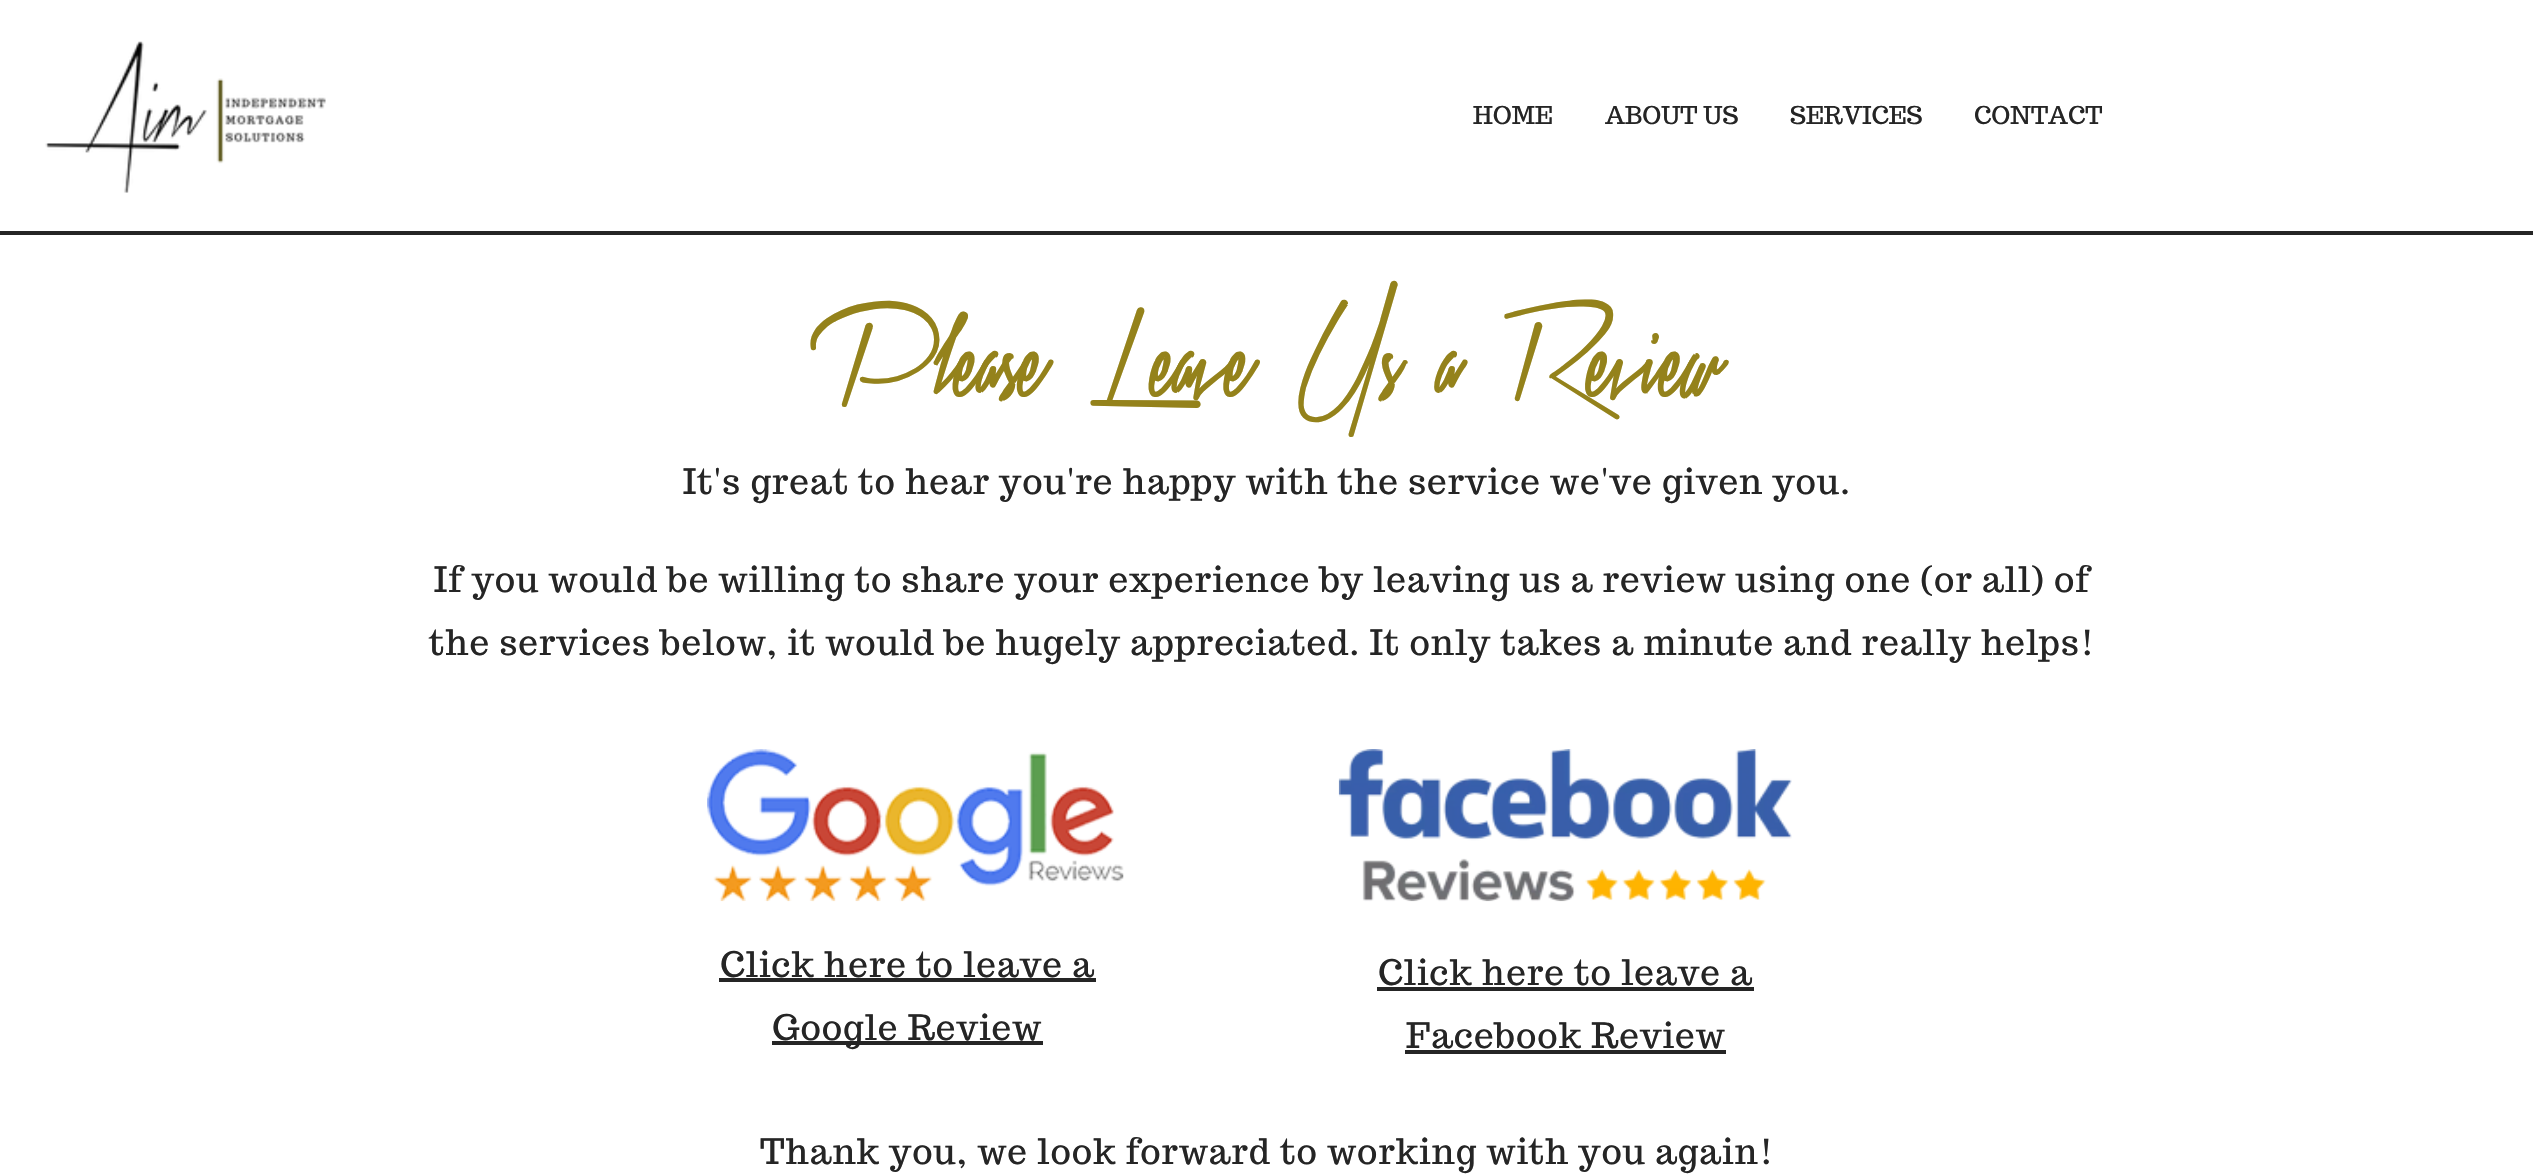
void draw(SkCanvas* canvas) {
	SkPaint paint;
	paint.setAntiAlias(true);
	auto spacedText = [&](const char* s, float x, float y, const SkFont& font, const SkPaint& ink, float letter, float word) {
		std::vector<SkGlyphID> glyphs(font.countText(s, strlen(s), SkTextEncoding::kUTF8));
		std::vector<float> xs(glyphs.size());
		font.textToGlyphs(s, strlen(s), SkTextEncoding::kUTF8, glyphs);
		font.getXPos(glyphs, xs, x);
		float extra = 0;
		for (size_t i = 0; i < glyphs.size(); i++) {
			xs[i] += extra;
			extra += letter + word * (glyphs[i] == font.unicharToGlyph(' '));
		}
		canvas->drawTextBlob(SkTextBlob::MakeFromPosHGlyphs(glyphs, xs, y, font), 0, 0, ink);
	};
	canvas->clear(0xffffffff);
	canvas->drawImageRect(SkImages::DeferredFromEncodedData(SkData::MakeFromFileName("img1.png")), SkRect::MakeXYWH(45, 41, 281, 152), SkSamplingOptions());
	SkFont f1(fontMgr->matchFamilyStyle("Trocchi", SkFontStyle::Normal()), 24.5);
	f1.setSubpixel(true);
	paint.setColor(0xff252525);
	canvas->drawString("HOME", 1473, 124, f1, paint);
	canvas->drawString("ABOUT US", 1605, 124, f1, paint);
	canvas->drawString("SERVICES", 1790, 124, f1, paint);
	canvas->drawString("CONTACT", 1974, 124, f1, paint);
	canvas->drawRect(SkRect::MakeXYWH(0, 231, 2533, 4), paint);
	SkFont f2(fontMgr->matchFamilyStyle("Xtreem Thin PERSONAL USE", SkFontStyle::Bold()), 133);
	f2.setSubpixel(true);
	paint.setColor(0xff94821b);
	canvas->drawString("Please Leave Us a Review", 809, 392, f2, paint);
	SkFont f3(fontMgr->matchFamilyStyle("Trocchi", SkFontStyle::Normal()), 35);
	f3.setSubpixel(true);
	paint.setColor(0xff252525);
	spacedText("It's great to hear you're happy with the service we've given you.", 683, 494, f3, paint, 1.05, 0);
	spacedText("If you would be willing to share your experience by leaving us a review using one (or all) of", 434, 592, f3, paint, 1.05, 0);
	spacedText("the services below, it would be hugely appreciated. It only takes a minute and really helps!", 429, 655, f3, paint, 1.05, 0);
	canvas->drawImageRect(SkImages::DeferredFromEncodedData(SkData::MakeFromFileName("img2.png")), SkRect::MakeXYWH(707, 749, 417, 153), SkSamplingOptions());
	canvas->drawImageRect(SkImages::DeferredFromEncodedData(SkData::MakeFromFileName("img3.png")), SkRect::MakeXYWH(1338, 749, 454, 153), SkSamplingOptions());
	spacedText("Click here to leave a", 720, 977, f3, paint, 1.05, 0);
	canvas->drawRect(SkRect::MakeXYWH(719, 978, 377, 4), paint);
	canvas->drawRect(SkRect::MakeXYWH(772, 1041, 271, 4), paint);
	spacedText("Google Review", 772, 1040, f3, paint, 1.05, 0);
	spacedText("Click here to leave a", 1378, 985, f3, paint, 1.05, 0);
	canvas->drawRect(SkRect::MakeXYWH(1377, 987, 377, 4), paint);
	spacedText("Facebook Review", 1406, 1048, f3, paint, 1.05, 0);
	canvas->drawRect(SkRect::MakeXYWH(1405, 1050, 321, 4), paint);
	spacedText("Thank you, we look forward to working with you again!", 760, 1164, f3, paint, 1.05, 0);
}
